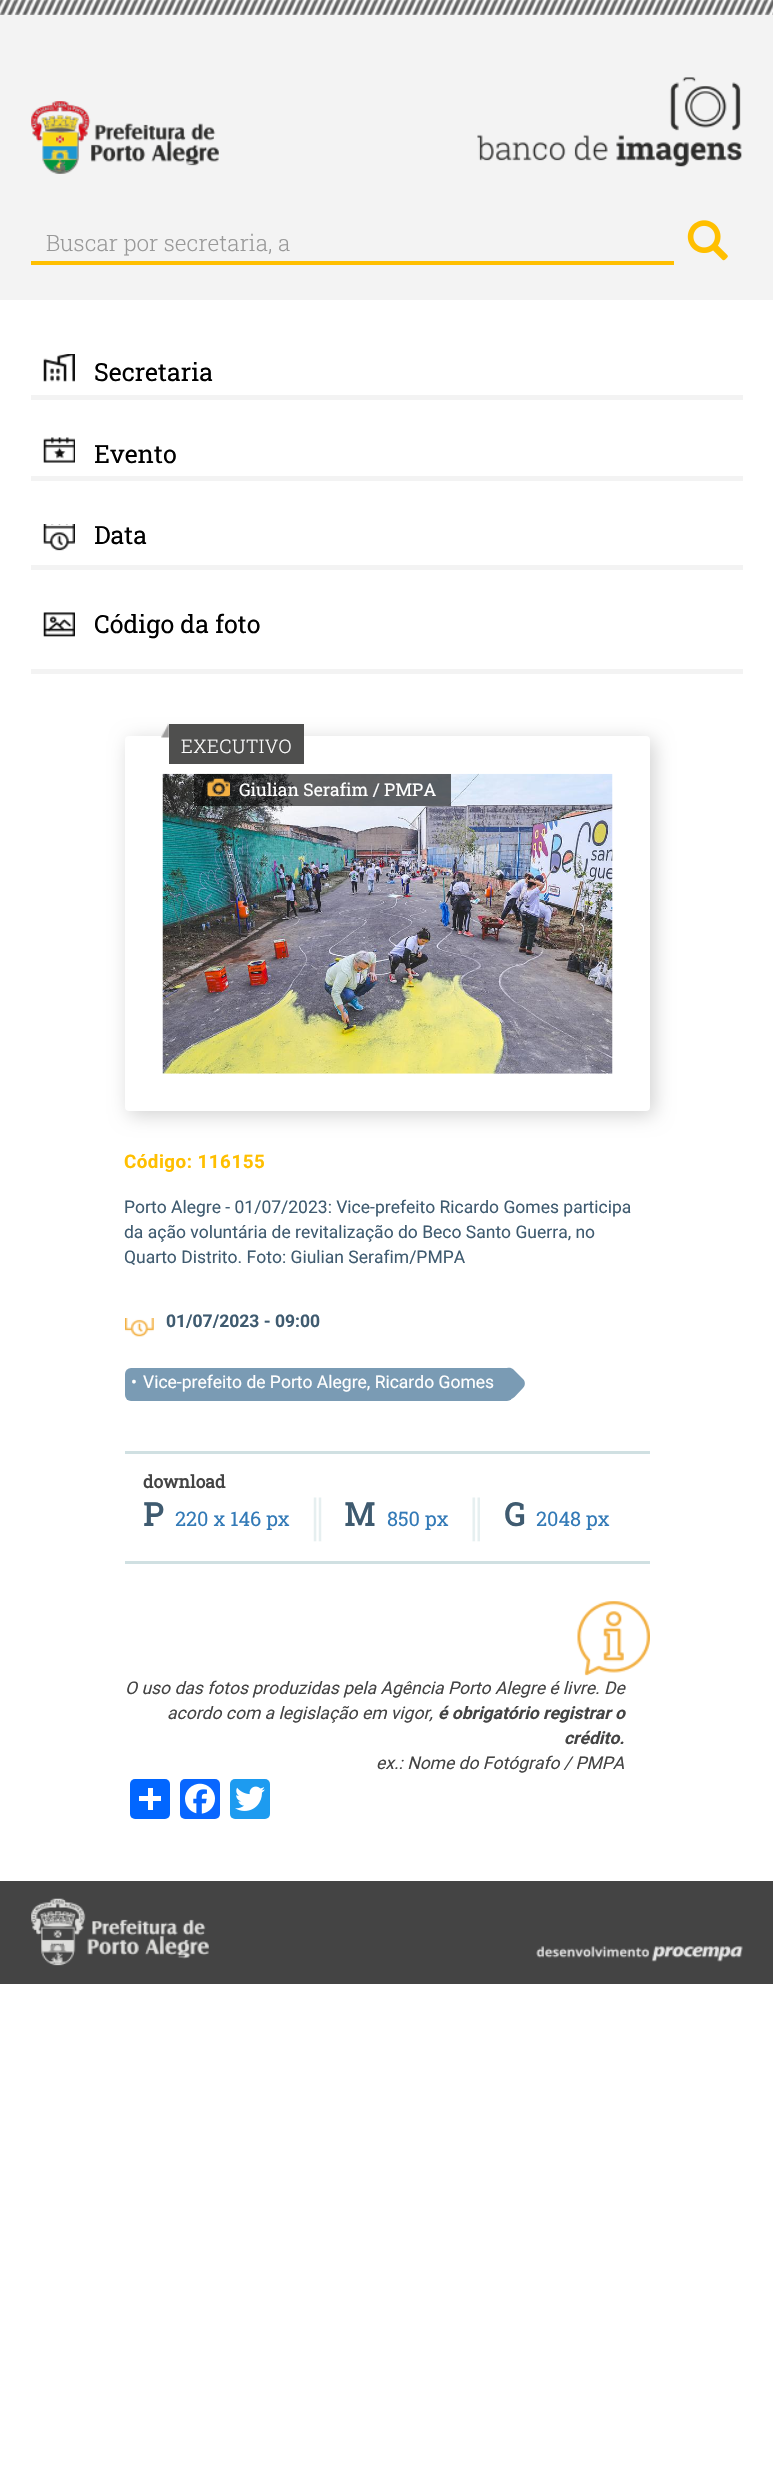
void draw(SkCanvas* canvas) {
	SkPaint paint;
	paint.setAntiAlias(true);
	auto spacedText = [&](const char* s, float x, float y, const SkFont& font, const SkPaint& ink, float letter, float word) {
		std::vector<SkGlyphID> glyphs(font.countText(s, strlen(s), SkTextEncoding::kUTF8));
		std::vector<float> xs(glyphs.size());
		font.textToGlyphs(s, strlen(s), SkTextEncoding::kUTF8, glyphs);
		font.getXPos(glyphs, xs, x);
		float extra = 0;
		for (size_t i = 0; i < glyphs.size(); i++) {
			xs[i] += extra;
			extra += letter + word * (glyphs[i] == font.unicharToGlyph(' '));
		}
		canvas->drawTextBlob(SkTextBlob::MakeFromPosHGlyphs(glyphs, xs, y, font), 0, 0, ink);
	};
	auto svgPath = [&](const char* data, bool evenOdd = false) {
		SkPath result = *SkParsePath::FromSVGString(data);
		if (evenOdd) result.setFillType(SkPathFillType::kEvenOdd);
		return result;
	};
	canvas->clear(0xffffffff);
	paint.setColor(0xfff3f3f3);
	canvas->drawRect(SkRect::MakeXYWH(0, 0, 773, 300), paint);
	canvas->drawImageRect(SkImages::DeferredFromEncodedData(SkData::MakeFromFileName("img1.png")), SkRect::MakeXYWH(0, 0, 773, 15), SkSamplingOptions());
	canvas->drawImageRect(SkImages::DeferredFromEncodedData(SkData::MakeFromFileName("img2.png")), SkRect::MakeXYWH(31, 101, 188, 73), SkSamplingOptions());
	canvas->drawImageRect(SkImages::DeferredFromEncodedData(SkData::MakeFromFileName("img3.png")), SkRect::MakeXYWH(477, 77, 265, 90), SkSamplingOptions());
	paint.setColor(0xffffbf00);
	canvas->drawRect(SkRect::MakeXYWH(31, 261, 643, 4), paint);
	SkFont f1(fontMgr->matchFamilyStyle("Roboto Slab", SkFontStyle(300, SkFontStyle::kNormal_Width, SkFontStyle::kUpright_Slant)), 22.5);
	f1.setSubpixel(true);
	paint.setColor(0xff999999);
	canvas->drawString("Buscar por secretaria, a", 46, 251, f1, paint);
	canvas->drawImageRect(SkImages::DeferredFromEncodedData(SkData::MakeFromFileName("img4.png")), SkRect::MakeXYWH(687, 220, 41, 41), SkSamplingOptions());
	paint.setColor(0xfff3f3f3);
	canvas->drawRect(SkRect::MakeXYWH(31, 395, 712, 5), paint);
	canvas->drawImageRect(SkImages::DeferredFromEncodedData(SkData::MakeFromFileName("img5.png")), SkRect::MakeXYWH(43, 354, 32, 28), SkSamplingOptions());
	SkFont f2(fontMgr->matchFamilyStyle("Roboto Slab", SkFontStyle::Normal()), 25);
	f2.setSubpixel(true);
	paint.setColor(0xff000000);
	canvas->drawString("Secretaria", 94, 381, f2, paint);
	paint.setColor(0xfff3f3f3);
	canvas->drawRect(SkRect::MakeXYWH(31, 476, 712, 5), paint);
	canvas->drawImageRect(SkImages::DeferredFromEncodedData(SkData::MakeFromFileName("img6.png")), SkRect::MakeXYWH(43, 437, 32, 26), SkSamplingOptions());
	paint.setColor(0xff000000);
	canvas->drawString("Evento", 94, 463, f2, paint);
	paint.setColor(0xfff3f3f3);
	canvas->drawRect(SkRect::MakeXYWH(31, 565, 712, 5), paint);
	canvas->drawImageRect(SkImages::DeferredFromEncodedData(SkData::MakeFromFileName("img7.png")), SkRect::MakeXYWH(43, 524, 32, 27), SkSamplingOptions());
	paint.setColor(0xff000000);
	canvas->drawString("Data", 94, 544, f2, paint);
	paint.setColor(0xfff3f3f3);
	canvas->drawRect(SkRect::MakeXYWH(31, 669, 712, 5), paint);
	canvas->drawImageRect(SkImages::DeferredFromEncodedData(SkData::MakeFromFileName("img8.png")), SkRect::MakeXYWH(43, 612, 32, 25), SkSamplingOptions());
	paint.setColor(0xff000000);
	canvas->drawString("Código da foto", 94, 633, f2, paint);
	paint.setColor(0xffd1d1d1);
	paint.setMaskFilter(SkMaskFilter::MakeBlur(kNormal_SkBlurStyle, 9.5));
	canvas->drawRoundRect(SkRect::MakeXYWH(129, 740, 525, 375), 4, 4, paint);
	paint.setMaskFilter(nullptr);
	paint.setColor(0xffffffff);
	canvas->drawRoundRect(SkRect::MakeXYWH(125, 736, 525, 375), 4, 4, paint);
	canvas->drawImageRect(SkImages::DeferredFromEncodedData(SkData::MakeFromFileName("img9.png")), SkRect::MakeXYWH(162, 773, 451, 301), SkSamplingOptions());
	paint.setColor(0xff4f4f4e);
	canvas->drawRect(SkRect::MakeXYWH(169, 724, 135, 40), paint);
	canvas->drawImageRect(SkImages::DeferredFromEncodedData(SkData::MakeFromFileName("img10.png")), SkRect::MakeXYWH(161, 723, 8, 15), SkSamplingOptions());
	SkFont f3(fontMgr->matchFamilyStyle("Roboto Slab", SkFontStyle(300, SkFontStyle::kNormal_Width, SkFontStyle::kUpright_Slant)), 18.75);
	f3.setSubpixel(true);
	paint.setColor(0xffffffff);
	spacedText("EXECUTIVO", 181, 753, f3, paint, 0.5, 0);
	paint.setColor(0x99000000);
	canvas->drawRect(SkRect::MakeXYWH(194, 774, 257, 32), paint);
	canvas->drawImageRect(SkImages::DeferredFromEncodedData(SkData::MakeFromFileName("img11.png")), SkRect::MakeXYWH(207, 778, 23, 19), SkSamplingOptions());
	SkFont f4(fontMgr->matchFamilyStyle("Roboto Slab", SkFontStyle::Normal()), 17.5);
	f4.setSubpixel(true);
	paint.setColor(0xffffffff);
	canvas->drawString("Giulian Serafim / PMPA", 239, 796, f4, paint);
	SkFont f5(fontMgr->matchFamilyStyle("Roboto", SkFontStyle::Bold()), 18.75);
	f5.setSubpixel(true);
	paint.setColor(0xffffbf00);
	spacedText("Código: 116155", 124, 1168, f5, paint, 0.5, 0);
	SkFont f6(fontMgr->matchFamilyStyle("Roboto", SkFontStyle::Normal()), 17.5);
	f6.setSubpixel(true);
	paint.setColor(0xff3f5b70);
	canvas->drawString("Porto Alegre - 01/07/2023: Vice-prefeito Ricardo Gomes participa", 124, 1213, f6, paint);
	canvas->drawString("da ação voluntária de revitalização do Beco Santo Guerra, no", 124, 1238, f6, paint);
	canvas->drawString("Quarto Distrito. Foto: Giulian Serafim/PMPA", 124, 1263, f6, paint);
	canvas->drawImageRect(SkImages::DeferredFromEncodedData(SkData::MakeFromFileName("img12.png")), SkRect::MakeXYWH(125, 1318, 29, 19), SkSamplingOptions());
	SkFont f7(fontMgr->matchFamilyStyle("Roboto", SkFontStyle::Bold()), 17.5);
	f7.setSubpixel(true);
	canvas->drawString("01/07/2023 - 09:00", 166, 1327, f7, paint);
	paint.setColor(0xff7a9bb4);
	canvas->drawRoundRect(SkRect::MakeXYWH(125, 1368, 388, 33), 6, 6, paint);
	paint.setColor(0xffffffff);
	canvas->drawString("•", 131, 1388, f6, paint);
	canvas->drawString("Vice-prefeito de Porto Alegre, Ricardo Gomes", 143, 1388, f6, paint);
	paint.setColor(0xff7a9bb4);
	canvas->drawPath(svgPath("M513.5 1369.5L523 1379C525.5 1381.5 525.5 1385.5 523 1388L514.5 1397C512 1399.5 508 1399.5 505.5 1397L496 1387C493.5 1384.5 493.5 1381 496 1378.5L504.5 1369.5C507 1367 511 1367 513.5 1369.5Z"), paint);
	paint.setColor(0xffd0e0e2);
	canvas->drawRect(SkRect::MakeXYWH(125, 1451, 525, 3), paint);
	canvas->drawRect(SkRect::MakeXYWH(125, 1561, 525, 3), paint);
	SkFont f8(fontMgr->matchFamilyStyle("Roboto Slab", SkFontStyle::Bold()), 17.5);
	f8.setSubpixel(true);
	paint.setColor(0xff444444);
	canvas->drawString("download", 143, 1488, f8, paint);
	SkFont f9(fontMgr->matchFamilyStyle("Roboto Slab", SkFontStyle::Bold()), 32);
	f9.setSubpixel(true);
	paint.setColor(0xff3f5b70);
	canvas->drawString("P", 143, 1526, f9, paint);
	SkFont f10(fontMgr->matchFamilyStyle("Roboto Slab", SkFontStyle::Normal()), 20);
	f10.setSubpixel(true);
	paint.setColor(0xff337ab7);
	canvas->drawString("220 x 146 px", 175, 1526, f10, paint);
	canvas->drawImageRect(SkImages::DeferredFromEncodedData(SkData::MakeFromFileName("img13.png")), SkRect::MakeXYWH(313, 1497, 9, 45), SkSamplingOptions());
	paint.setColor(0xff3f5b70);
	canvas->drawString("M", 344, 1526, f9, paint);
	paint.setColor(0xff337ab7);
	canvas->drawString("850 px", 387, 1526, f10, paint);
	canvas->drawImageRect(SkImages::DeferredFromEncodedData(SkData::MakeFromFileName("img14.png")), SkRect::MakeXYWH(472, 1497, 8, 45), SkSamplingOptions());
	paint.setColor(0xff3f5b70);
	canvas->drawString("G", 504, 1526, f9, paint);
	paint.setColor(0xff337ab7);
	canvas->drawString("2048 px", 536, 1526, f10, paint);
	canvas->drawImageRect(SkImages::DeferredFromEncodedData(SkData::MakeFromFileName("img15.png")), SkRect::MakeXYWH(577, 1601, 73, 75), SkSamplingOptions());
	SkFont f11(fontMgr->matchFamilyStyle("Roboto", SkFontStyle::Italic()), 17.5);
	f11.setSubpixel(true);
	paint.setColor(0xff444444);
	canvas->drawString("O uso das fotos produzidas pela Agência Porto Alegre é livre. De", 125, 1694, f11, paint);
	canvas->drawString("acordo com a legislação em vigor,", 167, 1719, f11, paint);
	SkFont f12(fontMgr->matchFamilyStyle("Roboto", SkFontStyle::BoldItalic()), 17.5);
	f12.setSubpixel(true);
	canvas->drawString("é obrigatório registrar o", 438, 1719, f12, paint);
	canvas->drawString("crédito.", 564, 1744, f12, paint);
	canvas->drawString("ex.: Nome do Fotógrafo / PMPA", 376, 1769, f11, paint);
	paint.setColor(0xff0166ff);
	canvas->drawRoundRect(SkRect::MakeXYWH(130, 1779, 40, 40), 5, 5, paint);
	paint.setColor(0xffffffff);
	canvas->drawRect(SkRect::MakeXYWH(148, 1788, 5, 22), paint);
	canvas->drawRect(SkRect::MakeXYWH(139, 1796, 22, 5), paint);
	paint.setColor(0xff0866ff);
	canvas->drawRoundRect(SkRect::MakeXYWH(180, 1779, 40, 40), 5, 5, paint);
	canvas->drawImageRect(SkImages::DeferredFromEncodedData(SkData::MakeFromFileName("img16.png")), SkRect::MakeXYWH(185, 1783, 30, 31), SkSamplingOptions());
	paint.setColor(0xff1d9bf0);
	canvas->drawRoundRect(SkRect::MakeXYWH(230, 1779, 40, 40), 5, 5, paint);
	canvas->drawImageRect(SkImages::DeferredFromEncodedData(SkData::MakeFromFileName("img17.png")), SkRect::MakeXYWH(235, 1786, 30, 25), SkSamplingOptions());
	paint.setColor(0xff444444);
	canvas->drawRect(SkRect::MakeXYWH(0, 1881, 773, 103), paint);
	canvas->drawImageRect(SkImages::DeferredFromEncodedData(SkData::MakeFromFileName("img18.png")), SkRect::MakeXYWH(31, 1898, 178, 68), SkSamplingOptions());
	canvas->drawImageRect(SkImages::DeferredFromEncodedData(SkData::MakeFromFileName("img19.png")), SkRect::MakeXYWH(536, 1946, 207, 16), SkSamplingOptions());
}
